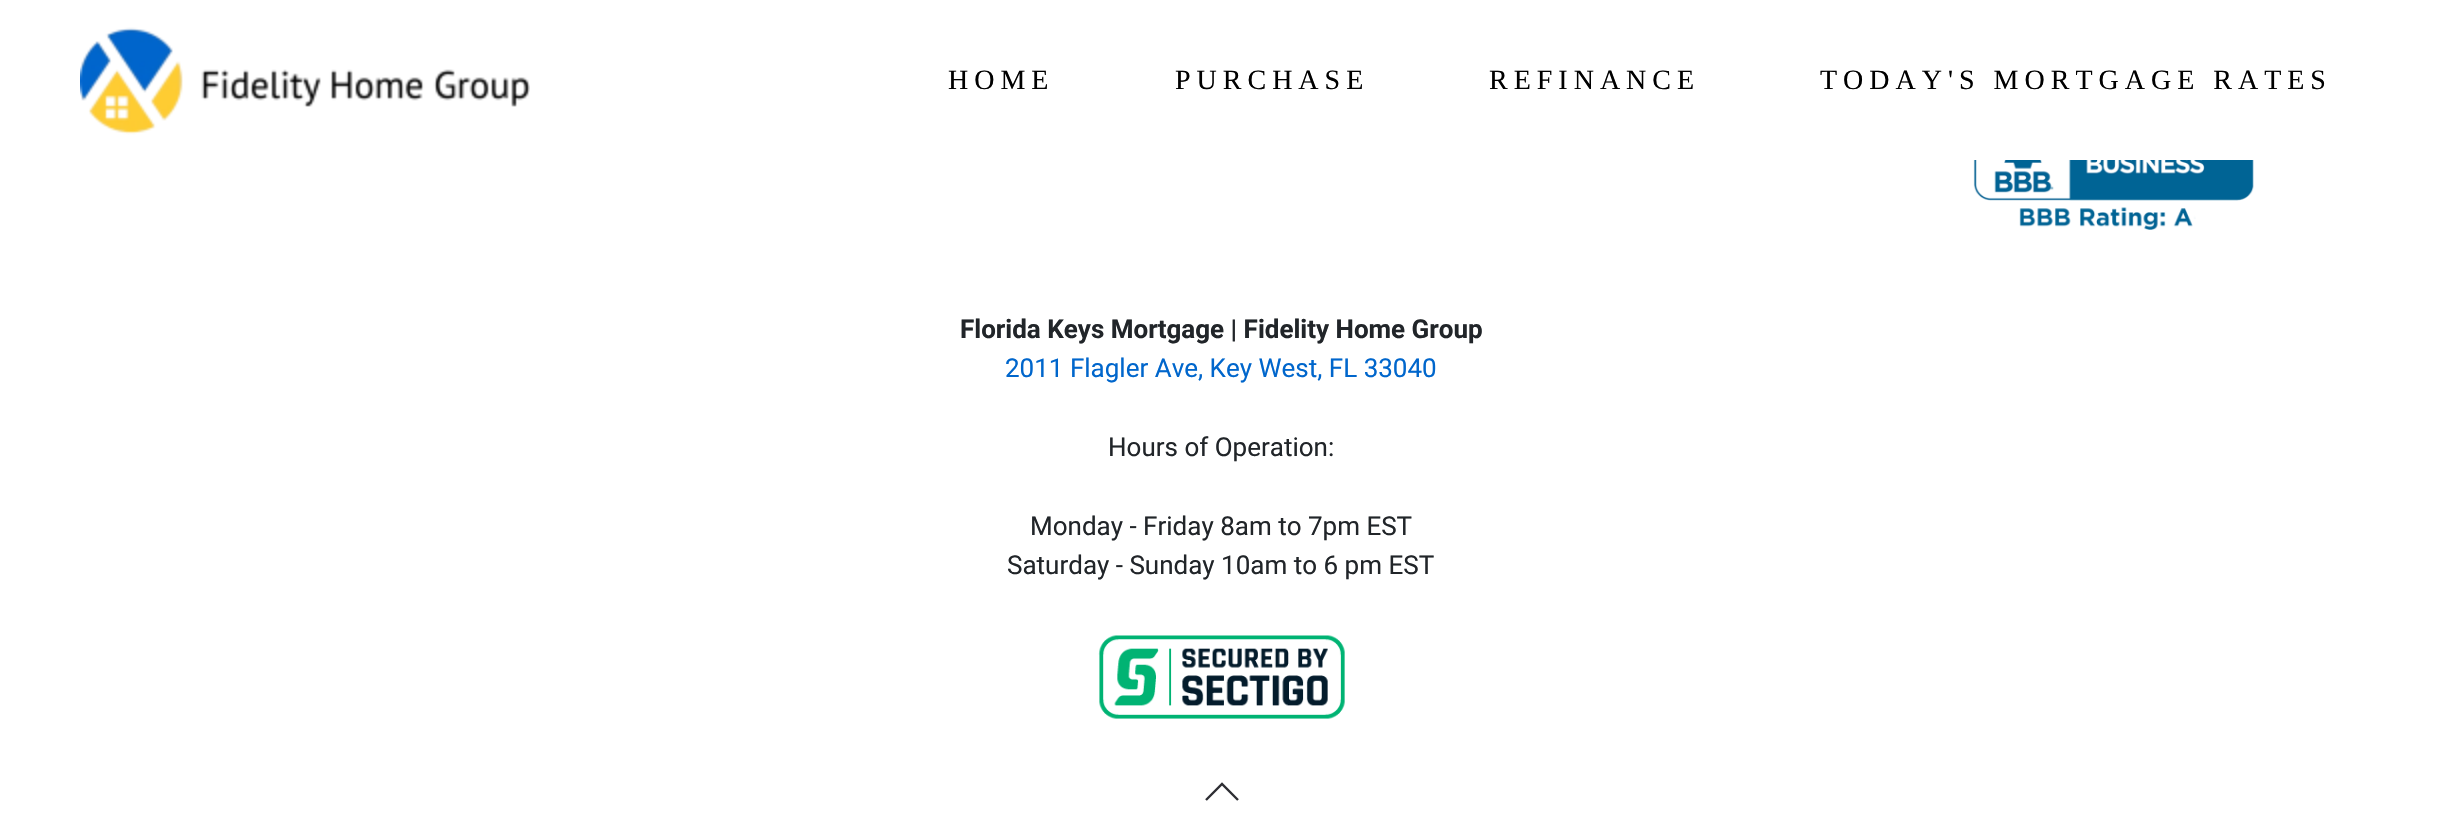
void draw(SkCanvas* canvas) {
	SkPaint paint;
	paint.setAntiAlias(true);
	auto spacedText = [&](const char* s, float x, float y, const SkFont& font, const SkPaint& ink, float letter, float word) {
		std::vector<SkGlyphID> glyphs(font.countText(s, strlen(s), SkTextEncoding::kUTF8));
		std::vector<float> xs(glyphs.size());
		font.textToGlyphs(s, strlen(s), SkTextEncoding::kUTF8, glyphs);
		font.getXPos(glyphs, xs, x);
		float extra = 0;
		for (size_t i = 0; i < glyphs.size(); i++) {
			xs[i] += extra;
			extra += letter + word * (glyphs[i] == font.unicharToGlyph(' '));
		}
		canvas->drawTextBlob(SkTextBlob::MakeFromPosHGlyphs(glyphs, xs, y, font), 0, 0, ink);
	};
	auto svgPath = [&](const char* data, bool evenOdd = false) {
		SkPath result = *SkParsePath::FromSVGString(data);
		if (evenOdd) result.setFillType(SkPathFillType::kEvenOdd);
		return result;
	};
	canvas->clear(0xffffffff);
	canvas->drawImageRect(SkImages::DeferredFromEncodedData(SkData::MakeFromFileName("img1.png")), SkRect::MakeXYWH(80, 27, 450, 108), SkSamplingOptions());
	SkFont f1(fontMgr->matchFamilyStyle("Liberation Serif", SkFontStyle::Normal()), 28);
	f1.setSubpixel(true);
	paint.setColor(0xff000000);
	spacedText("HOME", 948, 89, f1, paint, 6, 0);
	spacedText("PURCHASE", 1175, 89, f1, paint, 6, 0);
	spacedText("REFINANCE", 1489, 89, f1, paint, 6, 0);
	spacedText("TODAY'S MORTGAGE RATES", 1820, 89, f1, paint, 6, 0);
	canvas->drawImageRect(SkImages::DeferredFromEncodedData(SkData::MakeFromFileName("img2.png")), SkRect::MakeXYWH(1973, 160, 281, 70), SkSamplingOptions());
	SkFont f2(fontMgr->matchFamilyStyle("Roboto", SkFontStyle::Bold()), 26);
	f2.setSubpixel(true);
	paint.setColor(0xff212529);
	canvas->drawString("Florida Keys Mortgage | Fidelity Home Group", 960, 338, f2, paint);
	SkFont f3(fontMgr->matchFamilyStyle("Roboto", SkFontStyle::Normal()), 26);
	f3.setSubpixel(true);
	paint.setColor(0xff0066cc);
	canvas->drawString("2011 Flagler Ave, Key West, FL 33040", 1005, 377, f3, paint);
	paint.setColor(0xff212529);
	canvas->drawString("Hours of Operation:", 1108, 456, f3, paint);
	canvas->drawString("Monday - Friday 8am to 7pm EST", 1030, 535, f3, paint);
	canvas->drawString("Saturday - Sunday 10am to 6 pm EST", 1007, 574, f3, paint);
	canvas->drawImageRect(SkImages::DeferredFromEncodedData(SkData::MakeFromFileName("img3.png")), SkRect::MakeXYWH(1098, 635, 247, 84), SkSamplingOptions());
	paint.setStroke(true);
	paint.setStrokeWidth(2.4);
	paint.setColor(0xff2d2e33);
	canvas->drawPath(svgPath("M1206 800L1222 784L1238 800"), paint);
}
